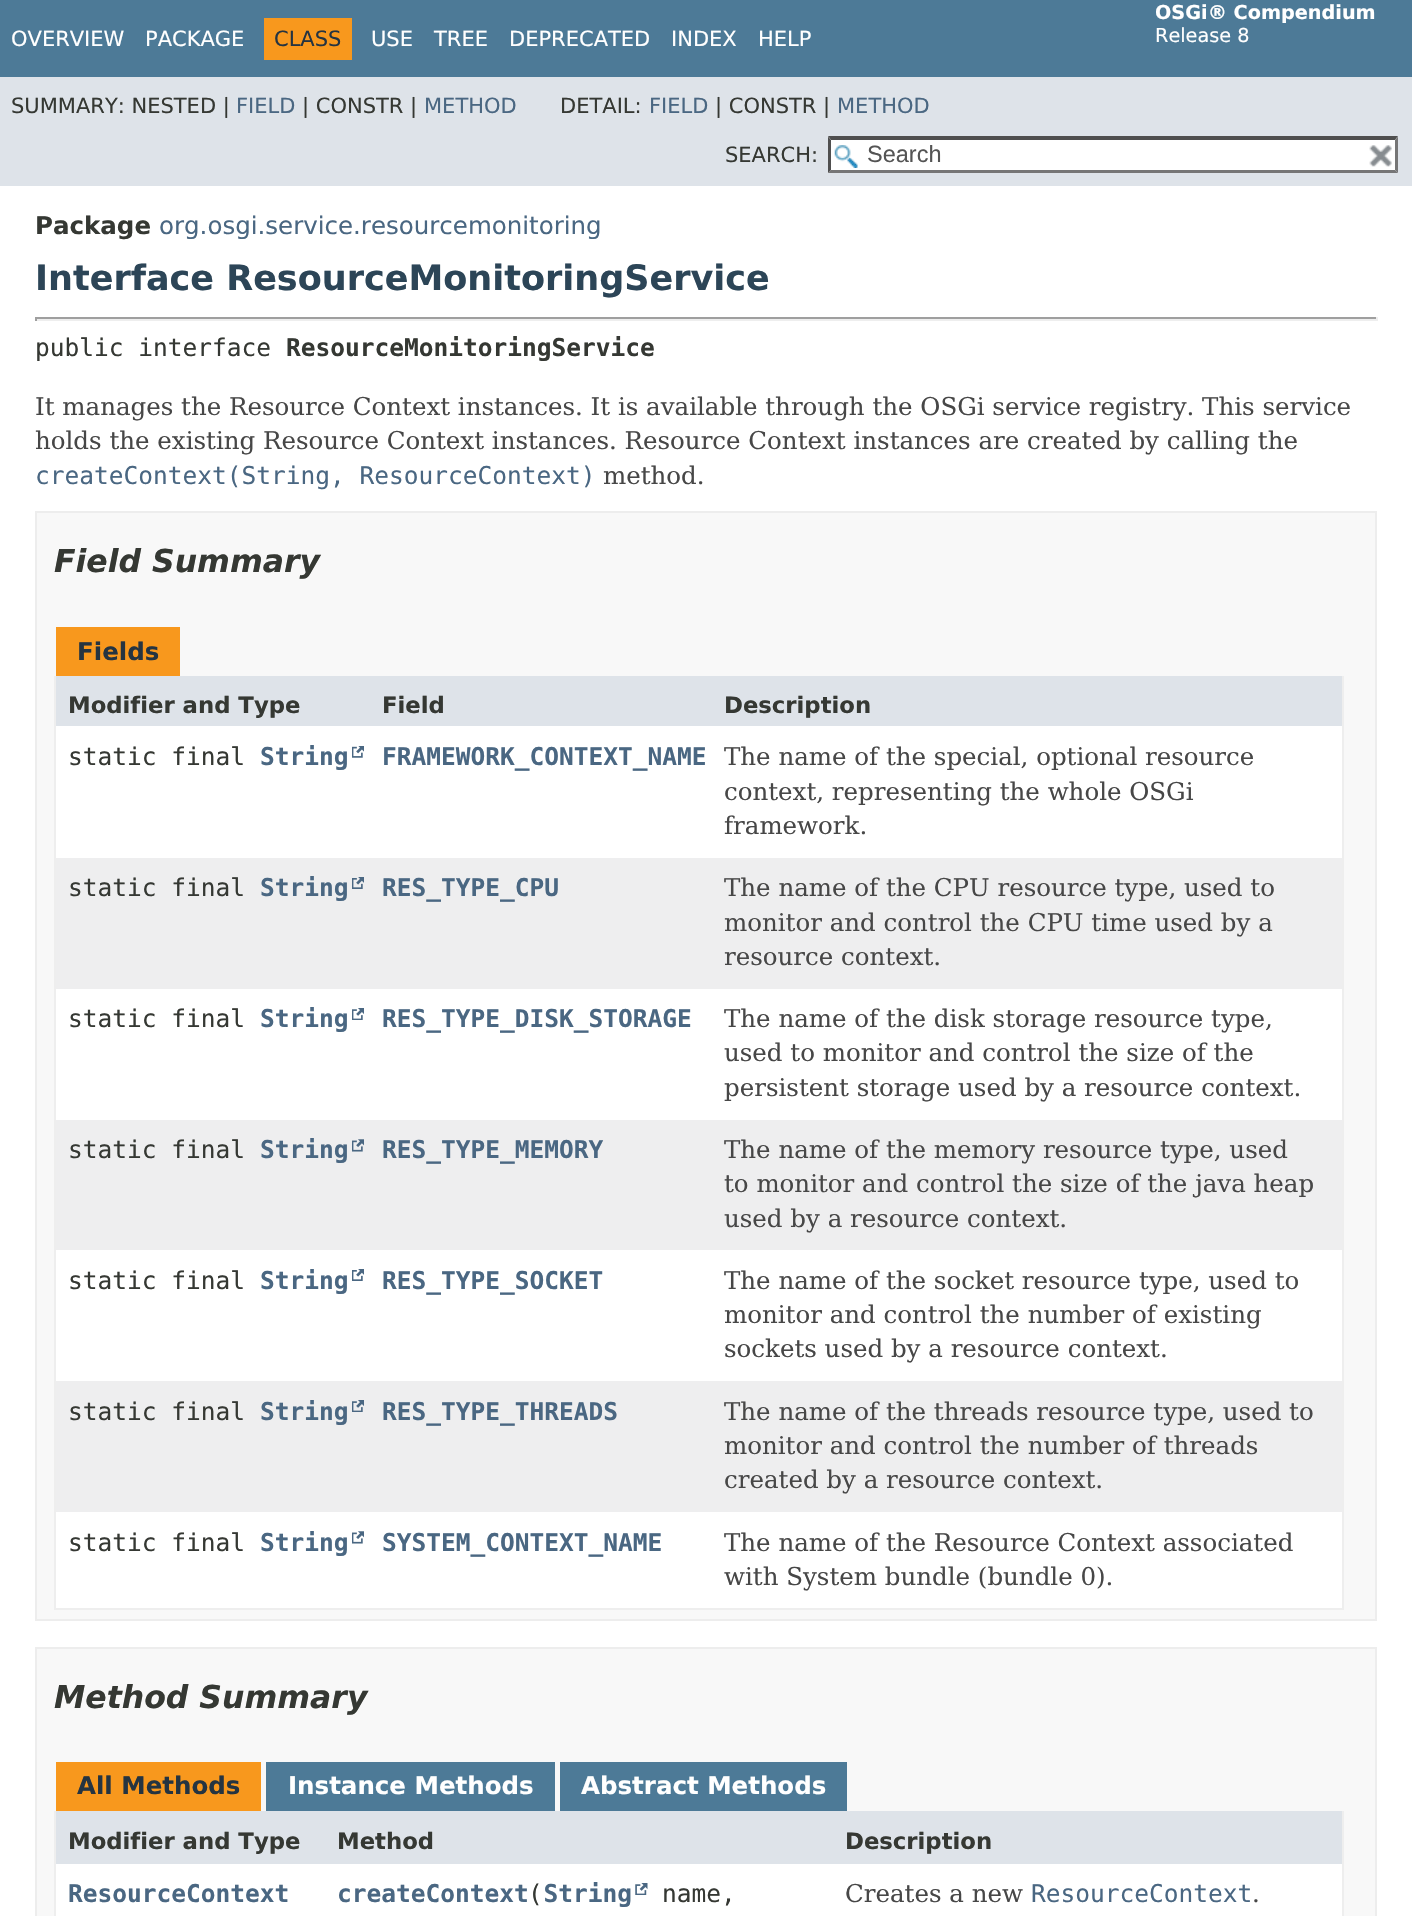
void draw(SkCanvas* canvas) {
	SkPaint paint;
	paint.setAntiAlias(true);
	auto svgPath = [&](const char* data, bool evenOdd = false) {
		SkPath result = *SkParsePath::FromSVGString(data);
		if (evenOdd) result.setFillType(SkPathFillType::kEvenOdd);
		return result;
	};
	canvas->clear(0xffffffff);
	paint.setColor(0xff4d7a97);
	canvas->drawRect(SkRect::MakeXYWH(0, 0, 1412, 77), paint);
	SkFont f1(fontMgr->matchFamilyStyle("DejaVu Sans", SkFontStyle::Normal()), 21);
	f1.setSubpixel(true);
	paint.setColor(0xffffffff);
	canvas->drawString("OVERVIEW", 11, 46, f1, paint);
	canvas->drawString("PACKAGE", 145, 46, f1, paint);
	paint.setColor(0xfff8981d);
	canvas->drawRect(SkRect::MakeXYWH(264, 18, 88, 42), paint);
	paint.setColor(0xff253441);
	canvas->drawString("CLASS", 274, 46, f1, paint);
	paint.setColor(0xffffffff);
	canvas->drawString("USE", 371, 46, f1, paint);
	canvas->drawString("TREE", 434, 46, f1, paint);
	canvas->drawString("DEPRECATED", 509, 46, f1, paint);
	canvas->drawString("INDEX", 671, 46, f1, paint);
	canvas->drawString("HELP", 758, 46, f1, paint);
	SkFont f2(fontMgr->matchFamilyStyle("DejaVu Sans", SkFontStyle::Bold()), 19.25);
	f2.setSubpixel(true);
	canvas->drawString("OSGi® Compendium", 1155, 19, f2, paint);
	SkFont f3(fontMgr->matchFamilyStyle("DejaVu Sans", SkFontStyle::Normal()), 19.25);
	f3.setSubpixel(true);
	canvas->drawString("Release 8", 1155, 42, f3, paint);
	paint.setColor(0xffdee3e9);
	canvas->drawRect(SkRect::MakeXYWH(0, 77, 1412, 109), paint);
	paint.setColor(0xff353833);
	canvas->drawString("SUMMARY: NESTED |", 11, 113, f1, paint);
	paint.setColor(0xff4a6782);
	canvas->drawString("FIELD", 236, 113, f1, paint);
	paint.setColor(0xff353833);
	canvas->drawString("| CONSTR |", 302, 113, f1, paint);
	paint.setColor(0xff4a6782);
	canvas->drawString("METHOD", 424, 113, f1, paint);
	paint.setColor(0xff353833);
	canvas->drawString("DETAIL:", 560, 113, f1, paint);
	paint.setColor(0xff4a6782);
	canvas->drawString("FIELD", 649, 113, f1, paint);
	paint.setColor(0xff353833);
	canvas->drawString("| CONSTR |", 715, 113, f1, paint);
	paint.setColor(0xff4a6782);
	canvas->drawString("METHOD", 837, 113, f1, paint);
	paint.setColor(0xff353833);
	canvas->drawString("SEARCH:", 725, 162, f1, paint);
	paint.setColor(0xffffffff);
	canvas->drawRect(SkRect::MakeXYWH(828, 137, 570, 36), paint);
	canvas->drawImageRect(SkImages::DeferredFromEncodedData(SkData::MakeFromFileName("img1.png")), SkRect::MakeXYWH(834, 145, 24, 23), SkSamplingOptions());
	paint.setColor(0xff4f4f4f);
	canvas->drawPath(svgPath("M828 136H1398L1395 140H831Z"), paint);
	paint.setColor(0xff767676);
	canvas->drawPath(svgPath("M1398 136.5V173L1395 170V140Z"), paint);
	canvas->drawPath(svgPath("M1398 173H828L831 170H1395Z"), paint);
	paint.setColor(0xff4f4f4f);
	canvas->drawPath(svgPath("M828 173V136.5L831 140V170Z"), paint);
	SkFont f4(fontMgr->matchFamilyStyle("Liberation Sans", SkFontStyle::Normal()), 23.5);
	f4.setSubpixel(true);
	paint.setColor(0xff545454);
	canvas->drawString("Search", 867, 162, f4, paint);
	canvas->drawImageRect(SkImages::DeferredFromEncodedData(SkData::MakeFromFileName("img2.png")), SkRect::MakeXYWH(1369, 145, 23, 22), SkSamplingOptions());
	SkFont f5(fontMgr->matchFamilyStyle("DejaVu Sans", SkFontStyle::Bold()), 24.5);
	f5.setSubpixel(true);
	paint.setColor(0xff353833);
	canvas->drawString("Package", 35, 234, f5, paint);
	SkFont f6(fontMgr->matchFamilyStyle("DejaVu Sans", SkFontStyle::Normal()), 24.5);
	f6.setSubpixel(true);
	paint.setColor(0xff4a6782);
	canvas->drawString("org.osgi.service.resourcemonitoring", 159, 234, f6, paint);
	SkFont f7(fontMgr->matchFamilyStyle("DejaVu Sans", SkFontStyle::Bold()), 35);
	f7.setSubpixel(true);
	paint.setColor(0xff2c4557);
	canvas->drawString("Interface ResourceMonitoringService", 35, 290, f7, paint);
	paint.setColor(0xff9f9f9f);
	canvas->drawRect(SkRect::MakeXYWH(35, 317, 1342, 2), paint);
	paint.setColor(0xffeeeeee);
	canvas->drawRect(SkRect::MakeXYWH(1376, 317, 2, 4), paint);
	canvas->drawRect(SkRect::MakeXYWH(35, 319, 1342, 2), paint);
	paint.setColor(0xff9f9f9f);
	canvas->drawRect(SkRect::MakeXYWH(35, 317, 2, 4), paint);
	SkFont f8(fontMgr->matchFamilyStyle("DejaVu Sans Mono", SkFontStyle::Normal()), 24.5);
	f8.setSubpixel(true);
	paint.setColor(0xff353833);
	canvas->drawString("public interface", 35, 356, f8, paint);
	SkFont f9(fontMgr->matchFamilyStyle("DejaVu Sans Mono", SkFontStyle::Bold()), 24.5);
	f9.setSubpixel(true);
	canvas->drawString("ResourceMonitoringService", 286, 356, f9, paint);
	SkFont f10(fontMgr->matchFamilyStyle("DejaVu Serif", SkFontStyle::Normal()), 24.5);
	f10.setSubpixel(true);
	paint.setColor(0xff474747);
	canvas->drawString("It manages the Resource Context instances. It is available through the OSGi service registry. This service", 35, 415, f10, paint);
	canvas->drawString("holds the existing Resource Context instances. Resource Context instances are created by calling the", 35, 449, f10, paint);
	paint.setColor(0xff4a6782);
	canvas->drawString("createContext(String, ResourceContext)", 35, 484, f8, paint);
	paint.setColor(0xff474747);
	canvas->drawString("method.", 603, 484, f10, paint);
	paint.setColor(0xfff8f8f8);
	canvas->drawRect(SkRect::MakeXYWH(36, 512, 1340, 1108), paint);
	paint.setStroke(true);
	paint.setStrokeWidth(2);
	paint.setColor(0xffededed);
	canvas->drawRect(SkRect::MakeXYWH(36, 512, 1340, 1108), paint);
	SkFont f11(fontMgr->matchFamilyStyle("DejaVu Sans", SkFontStyle::BoldItalic()), 31.5);
	f11.setSubpixel(true);
	paint.setStroke(false);
	paint.setColor(0xff353833);
	canvas->drawString("Field Summary", 54, 572, f11, paint);
	paint.setColor(0xfff8981d);
	canvas->drawRect(SkRect::MakeXYWH(56, 627, 124, 49), paint);
	paint.setColor(0xff253441);
	canvas->drawString("Fields", 77, 660, f5, paint);
	paint.setColor(0xffeeeeee);
	canvas->drawRect(SkRect::MakeXYWH(1342, 676, 2, 934), paint);
	canvas->drawRect(SkRect::MakeXYWH(54, 1608, 1290, 2), paint);
	canvas->drawRect(SkRect::MakeXYWH(54, 676, 2, 934), paint);
	paint.setColor(0xffdee3e9);
	canvas->drawRect(SkRect::MakeXYWH(56, 676, 656, 50), paint);
	SkFont f12(fontMgr->matchFamilyStyle("DejaVu Sans", SkFontStyle::Bold()), 22.75);
	f12.setSubpixel(true);
	paint.setColor(0xff353833);
	canvas->drawString("Modifier and Type", 68, 713, f12, paint);
	canvas->drawString("Field", 382, 713, f12, paint);
	paint.setColor(0xffdee3e9);
	canvas->drawRect(SkRect::MakeXYWH(712, 676, 630, 50), paint);
	paint.setColor(0xff353833);
	canvas->drawString("Description", 724, 713, f12, paint);
	paint.setColor(0xffffffff);
	canvas->drawRect(SkRect::MakeXYWH(56, 726, 656, 132), paint);
	paint.setColor(0xff353833);
	canvas->drawString("static final", 68, 765, f8, paint);
	paint.setColor(0xff4a6782);
	canvas->drawString("String", 260, 765, f9, paint);
	canvas->drawImageRect(SkImages::DeferredFromEncodedData(SkData::MakeFromFileName("img3.png")), SkRect::MakeXYWH(352, 746, 12, 12), SkSamplingOptions());
	canvas->drawString("FRAMEWORK_CONTEXT_NAME", 382, 765, f9, paint);
	paint.setColor(0xffffffff);
	canvas->drawRect(SkRect::MakeXYWH(712, 726, 630, 132), paint);
	paint.setColor(0xff474747);
	canvas->drawString("The name of the special, optional resource", 724, 765, f10, paint);
	canvas->drawString("context, representing the whole OSGi", 724, 800, f10, paint);
	canvas->drawString("framework.", 724, 834, f10, paint);
	paint.setColor(0xffeeeeef);
	canvas->drawRect(SkRect::MakeXYWH(56, 858, 656, 131), paint);
	paint.setColor(0xff353833);
	canvas->drawString("static final", 68, 896, f8, paint);
	paint.setColor(0xff4a6782);
	canvas->drawString("String", 260, 896, f9, paint);
	canvas->drawImageRect(SkImages::DeferredFromEncodedData(SkData::MakeFromFileName("img4.png")), SkRect::MakeXYWH(352, 877, 12, 12), SkSamplingOptions());
	canvas->drawString("RES_TYPE_CPU", 382, 896, f9, paint);
	paint.setColor(0xffeeeeef);
	canvas->drawRect(SkRect::MakeXYWH(712, 858, 630, 131), paint);
	paint.setColor(0xff474747);
	canvas->drawString("The name of the CPU resource type, used to", 724, 896, f10, paint);
	canvas->drawString("monitor and control the CPU time used by a", 724, 931, f10, paint);
	canvas->drawString("resource context.", 724, 965, f10, paint);
	paint.setColor(0xffffffff);
	canvas->drawRect(SkRect::MakeXYWH(56, 989, 656, 131), paint);
	paint.setColor(0xff353833);
	canvas->drawString("static final", 68, 1027, f8, paint);
	paint.setColor(0xff4a6782);
	canvas->drawString("String", 260, 1027, f9, paint);
	canvas->drawImageRect(SkImages::DeferredFromEncodedData(SkData::MakeFromFileName("img5.png")), SkRect::MakeXYWH(352, 1008, 12, 12), SkSamplingOptions());
	canvas->drawString("RES_TYPE_DISK_STORAGE", 382, 1027, f9, paint);
	paint.setColor(0xffffffff);
	canvas->drawRect(SkRect::MakeXYWH(712, 989, 630, 131), paint);
	paint.setColor(0xff474747);
	canvas->drawString("The name of the disk storage resource type,", 724, 1027, f10, paint);
	canvas->drawString("used to monitor and control the size of the", 724, 1061, f10, paint);
	canvas->drawString("persistent storage used by a resource context.", 724, 1096, f10, paint);
	paint.setColor(0xffeeeeef);
	canvas->drawRect(SkRect::MakeXYWH(56, 1120, 656, 130), paint);
	paint.setColor(0xff353833);
	canvas->drawString("static final", 68, 1158, f8, paint);
	paint.setColor(0xff4a6782);
	canvas->drawString("String", 260, 1158, f9, paint);
	canvas->drawImageRect(SkImages::DeferredFromEncodedData(SkData::MakeFromFileName("img6.png")), SkRect::MakeXYWH(352, 1139, 12, 13), SkSamplingOptions());
	canvas->drawString("RES_TYPE_MEMORY", 382, 1158, f9, paint);
	paint.setColor(0xffeeeeef);
	canvas->drawRect(SkRect::MakeXYWH(712, 1120, 630, 130), paint);
	paint.setColor(0xff474747);
	canvas->drawString("The name of the memory resource type, used", 724, 1158, f10, paint);
	canvas->drawString("to monitor and control the size of the java heap", 724, 1192, f10, paint);
	canvas->drawString("used by a resource context.", 724, 1227, f10, paint);
	paint.setColor(0xffffffff);
	canvas->drawRect(SkRect::MakeXYWH(56, 1250, 656, 131), paint);
	paint.setColor(0xff353833);
	canvas->drawString("static final", 68, 1289, f8, paint);
	paint.setColor(0xff4a6782);
	canvas->drawString("String", 260, 1289, f9, paint);
	canvas->drawImageRect(SkImages::DeferredFromEncodedData(SkData::MakeFromFileName("img7.png")), SkRect::MakeXYWH(352, 1269, 12, 12), SkSamplingOptions());
	canvas->drawString("RES_TYPE_SOCKET", 382, 1289, f9, paint);
	paint.setColor(0xffffffff);
	canvas->drawRect(SkRect::MakeXYWH(712, 1250, 630, 131), paint);
	paint.setColor(0xff474747);
	canvas->drawString("The name of the socket resource type, used to", 724, 1289, f10, paint);
	canvas->drawString("monitor and control the number of existing", 724, 1323, f10, paint);
	canvas->drawString("sockets used by a resource context.", 724, 1357, f10, paint);
	paint.setColor(0xffeeeeef);
	canvas->drawRect(SkRect::MakeXYWH(56, 1381, 656, 131), paint);
	paint.setColor(0xff353833);
	canvas->drawString("static final", 68, 1420, f8, paint);
	paint.setColor(0xff4a6782);
	canvas->drawString("String", 260, 1420, f9, paint);
	canvas->drawImageRect(SkImages::DeferredFromEncodedData(SkData::MakeFromFileName("img8.png")), SkRect::MakeXYWH(352, 1400, 12, 12), SkSamplingOptions());
	canvas->drawString("RES_TYPE_THREADS", 382, 1420, f9, paint);
	paint.setColor(0xffeeeeef);
	canvas->drawRect(SkRect::MakeXYWH(712, 1381, 630, 131), paint);
	paint.setColor(0xff474747);
	canvas->drawString("The name of the threads resource type, used to", 724, 1420, f10, paint);
	canvas->drawString("monitor and control the number of threads", 724, 1454, f10, paint);
	canvas->drawString("created by a resource context.", 724, 1488, f10, paint);
	paint.setColor(0xffffffff);
	canvas->drawRect(SkRect::MakeXYWH(56, 1512, 656, 96), paint);
	paint.setColor(0xff353833);
	canvas->drawString("static final", 68, 1551, f8, paint);
	paint.setColor(0xff4a6782);
	canvas->drawString("String", 260, 1551, f9, paint);
	canvas->drawImageRect(SkImages::DeferredFromEncodedData(SkData::MakeFromFileName("img9.png")), SkRect::MakeXYWH(352, 1531, 12, 13), SkSamplingOptions());
	canvas->drawString("SYSTEM_CONTEXT_NAME", 382, 1551, f9, paint);
	paint.setColor(0xffffffff);
	canvas->drawRect(SkRect::MakeXYWH(712, 1512, 630, 96), paint);
	paint.setColor(0xff474747);
	canvas->drawString("The name of the Resource Context associated", 724, 1551, f10, paint);
	canvas->drawString("with System bundle (bundle 0).", 724, 1585, f10, paint);
	paint.setColor(0xfff8f8f8);
	canvas->drawRect(SkRect::MakeXYWH(36, 1648, 1340, 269), paint);
	paint.setStroke(true);
	paint.setColor(0xffededed);
	canvas->drawRect(SkRect::MakeXYWH(36, 1648, 1340, 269), paint);
	paint.setStroke(false);
	paint.setColor(0xff353833);
	canvas->drawString("Method Summary", 54, 1708, f11, paint);
	paint.setColor(0xfff8981d);
	canvas->drawRect(SkRect::MakeXYWH(56, 1762, 205, 49), paint);
	paint.setColor(0xff253441);
	canvas->drawString("All Methods", 77, 1794, f5, paint);
	paint.setColor(0xff4d7a97);
	canvas->drawRect(SkRect::MakeXYWH(266, 1762, 289, 49), paint);
	paint.setColor(0xffffffff);
	canvas->drawString("Instance Methods", 288, 1794, f5, paint);
	paint.setColor(0xff4d7a97);
	canvas->drawRect(SkRect::MakeXYWH(560, 1762, 287, 49), paint);
	paint.setColor(0xffffffff);
	canvas->drawString("Abstract Methods", 581, 1794, f5, paint);
	paint.setColor(0xffeeeeee);
	canvas->drawRect(SkRect::MakeXYWH(1342, 1811, 2, 105), paint);
	canvas->drawRect(SkRect::MakeXYWH(54, 1811, 2, 105), paint);
	paint.setColor(0xffdee3e9);
	canvas->drawRect(SkRect::MakeXYWH(56, 1811, 777, 53), paint);
	paint.setColor(0xff353833);
	canvas->drawString("Modifier and Type", 68, 1849, f12, paint);
	canvas->drawString("Method", 337, 1849, f12, paint);
	paint.setColor(0xffdee3e9);
	canvas->drawRect(SkRect::MakeXYWH(833, 1811, 509, 53), paint);
	paint.setColor(0xff353833);
	canvas->drawString("Description", 845, 1849, f12, paint);
	paint.setColor(0xffffffff);
	canvas->drawRect(SkRect::MakeXYWH(56, 1864, 777, 52), paint);
	paint.setColor(0xff4a6782);
	canvas->drawString("ResourceContext", 68, 1902, f9, paint);
	canvas->drawString("createContext String", 337, 1902, f9, paint);
	paint.setColor(0xff353833);
	canvas->drawString("(", 528, 1902, f8, paint);
	canvas->drawImageRect(SkImages::DeferredFromEncodedData(SkData::MakeFromFileName("img10.png")), SkRect::MakeXYWH(635, 1883, 13, 12), SkSamplingOptions());
	canvas->drawString("name,", 662, 1902, f8, paint);
	paint.setColor(0xffffffff);
	canvas->drawRect(SkRect::MakeXYWH(833, 1864, 509, 52), paint);
	paint.setColor(0xff474747);
	canvas->drawString("Creates a new", 845, 1902, f10, paint);
	paint.setColor(0xff4a6782);
	canvas->drawString("ResourceContext", 1031, 1902, f8, paint);
	paint.setColor(0xff474747);
	canvas->drawString(".", 1252, 1902, f10, paint);
}
